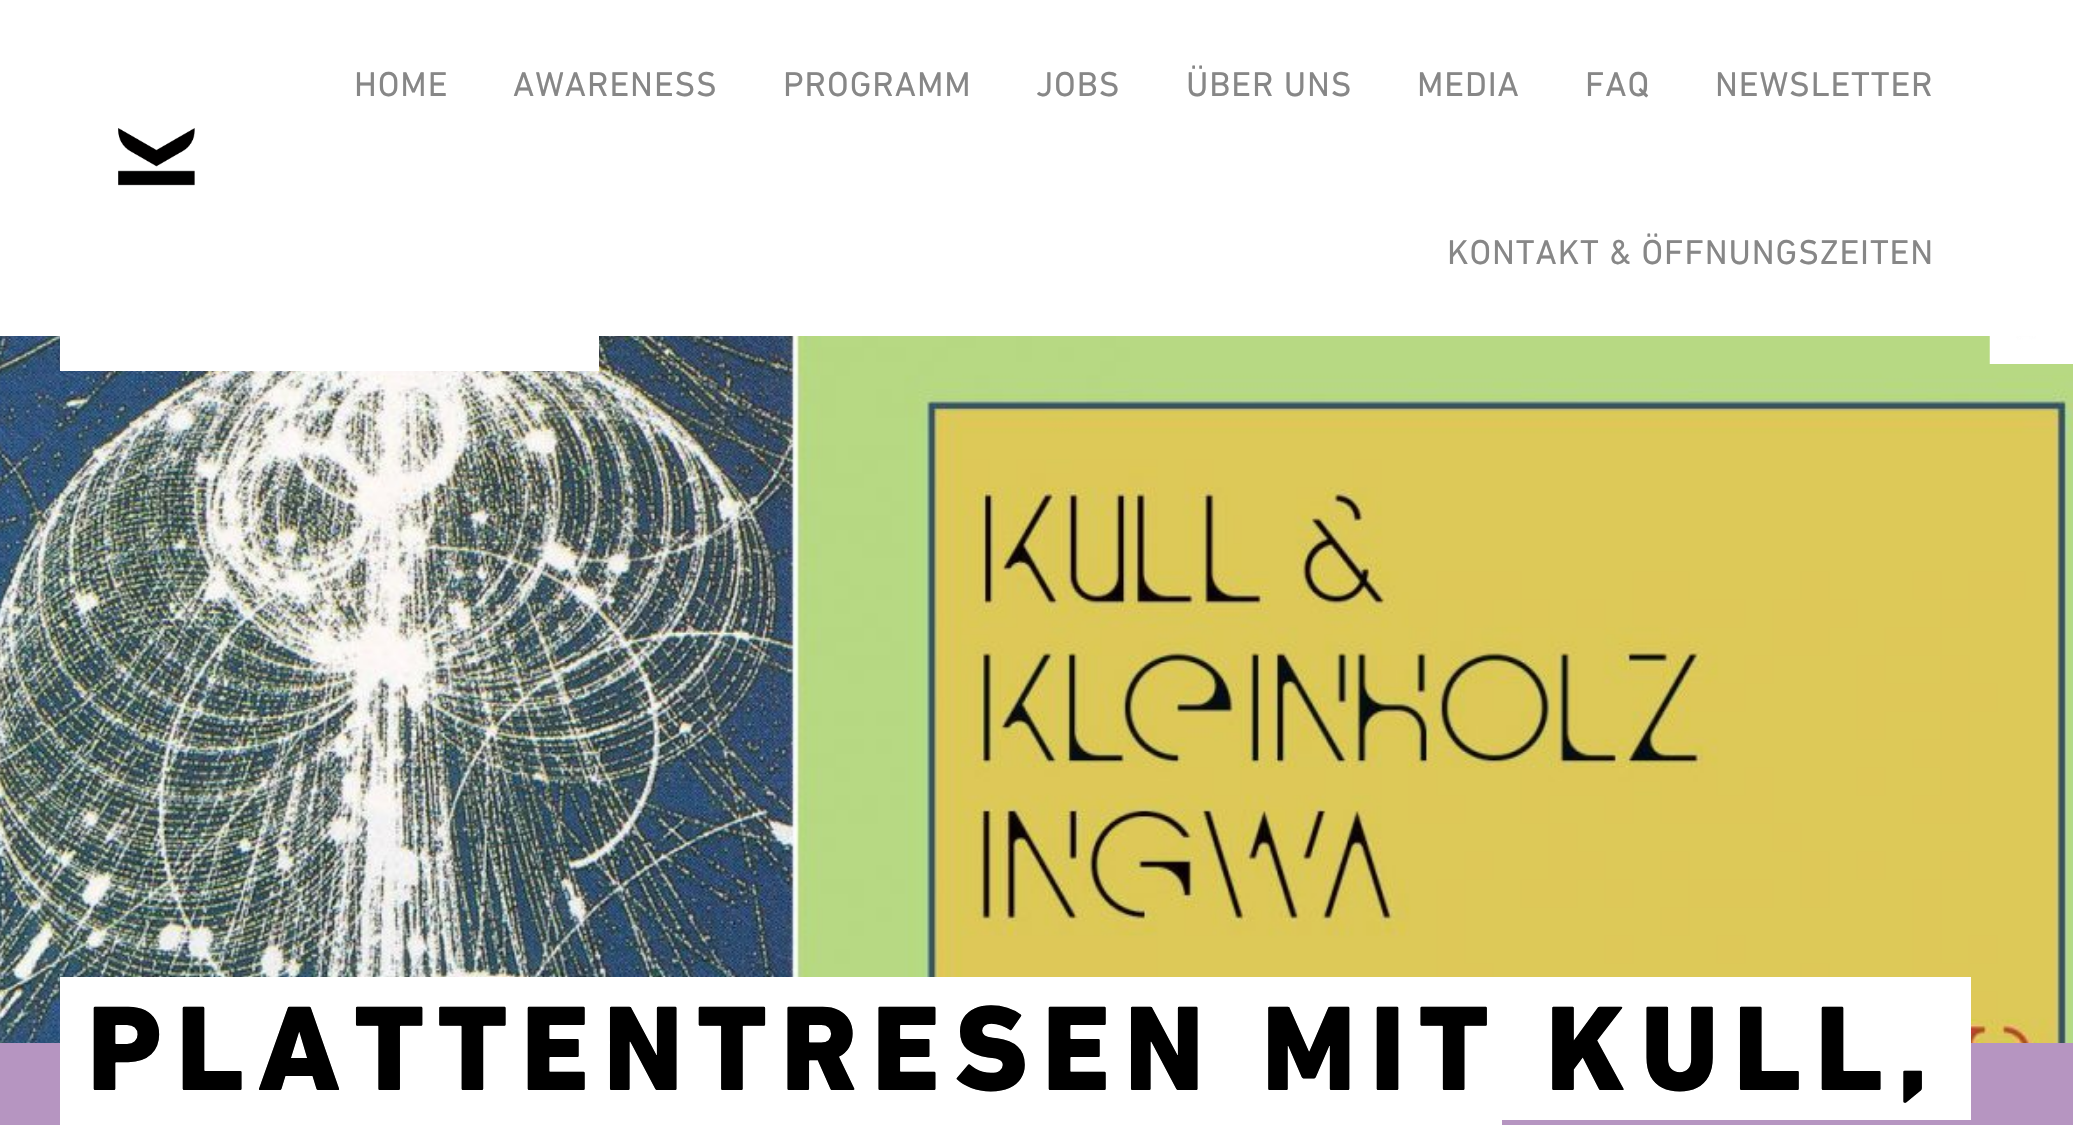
void draw(SkCanvas* canvas) {
	SkPaint paint;
	paint.setAntiAlias(true);
	auto spacedText = [&](const char* s, float x, float y, const SkFont& font, const SkPaint& ink, float letter, float word) {
		std::vector<SkGlyphID> glyphs(font.countText(s, strlen(s), SkTextEncoding::kUTF8));
		std::vector<float> xs(glyphs.size());
		font.textToGlyphs(s, strlen(s), SkTextEncoding::kUTF8, glyphs);
		font.getXPos(glyphs, xs, x);
		float extra = 0;
		for (size_t i = 0; i < glyphs.size(); i++) {
			xs[i] += extra;
			extra += letter + word * (glyphs[i] == font.unicharToGlyph(' '));
		}
		canvas->drawTextBlob(SkTextBlob::MakeFromPosHGlyphs(glyphs, xs, y, font), 0, 0, ink);
	};
	auto svgPath = [&](const char* data, bool evenOdd = false) {
		SkPath result = *SkParsePath::FromSVGString(data);
		if (evenOdd) result.setFillType(SkPathFillType::kEvenOdd);
		return result;
	};
	canvas->clear(0xffb695c1);
	paint.setColor(0xffffffff);
	canvas->drawRect(SkRect::MakeXYWH(0, 0, 2073, 336), paint);
	canvas->drawImageRect(SkImages::DeferredFromEncodedData(SkData::MakeFromFileName("img1.png")), SkRect::MakeXYWH(118, 128, 77, 58), SkSamplingOptions());
	SkFont f1(fontMgr->matchFamilyStyle("DIN Next", SkFontStyle::Normal()), 35);
	f1.setSubpixel(true);
	paint.setColor(0xff878787);
	spacedText("HOME", 354, 96, f1, paint, 0.9, 0);
	spacedText("AWARENESS", 513, 96, f1, paint, 0.9, 0);
	spacedText("PROGRAMM", 783, 96, f1, paint, 0.9, 0);
	spacedText("JOBS", 1036, 96, f1, paint, 0.9, 0);
	spacedText("ÜBER UNS", 1186, 96, f1, paint, 0.9, 0);
	spacedText("MEDIA", 1417, 96, f1, paint, 0.9, 0);
	spacedText("FAQ", 1585, 96, f1, paint, 0.9, 0);
	spacedText("NEWSLETTER", 1715, 96, f1, paint, 0.9, 0);
	spacedText("KONTAKT & ÖFFNUNGSZEITEN", 1447, 264, f1, paint, 0.9, 0);
	canvas->drawImageRect(SkImages::DeferredFromEncodedData(SkData::MakeFromFileName("img2.png")), SkRect::MakeXYWH(0, 336, 2073, 707), SkSamplingOptions());
	paint.setColor(0xffffffff);
	canvas->drawRect(SkRect::MakeXYWH(2046, 336, 27, 28), paint);
	canvas->drawImageRect(SkImages::DeferredFromEncodedData(SkData::MakeFromFileName("img3.png")), SkRect::MakeXYWH(1989, 336, 57, 28), SkSamplingOptions());
	canvas->drawRect(SkRect::MakeXYWH(60, 336, 28, 35), paint);
	canvas->drawRect(SkRect::MakeXYWH(88, 336, 511, 35), paint);
	canvas->drawRect(SkRect::MakeXYWH(88, 977, 1883, 143), paint);
	SkFont f2(fontMgr->matchFamilyStyle("DIN Next", SkFontStyle(900, SkFontStyle::kNormal_Width, SkFontStyle::kUpright_Slant)), 122.5);
	f2.setSubpixel(true);
	paint.setColor(0xff000000);
	spacedText("PLATTENTRESEN MIT KULL,", 87, 1090, f2, paint, 14, 0);
	paint.setColor(0xffffffff);
	canvas->drawRect(SkRect::MakeXYWH(60, 977, 28, 134), paint);
	canvas->drawPath(svgPath("M60 1111V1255H1446H88V1111H1446Z"), paint);
	canvas->drawPath(svgPath("M116 1111H1474V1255H116H1502V1111Z"), paint);
	canvas->drawRect(SkRect::MakeXYWH(88, 1120, 1386, 5), paint);
}
